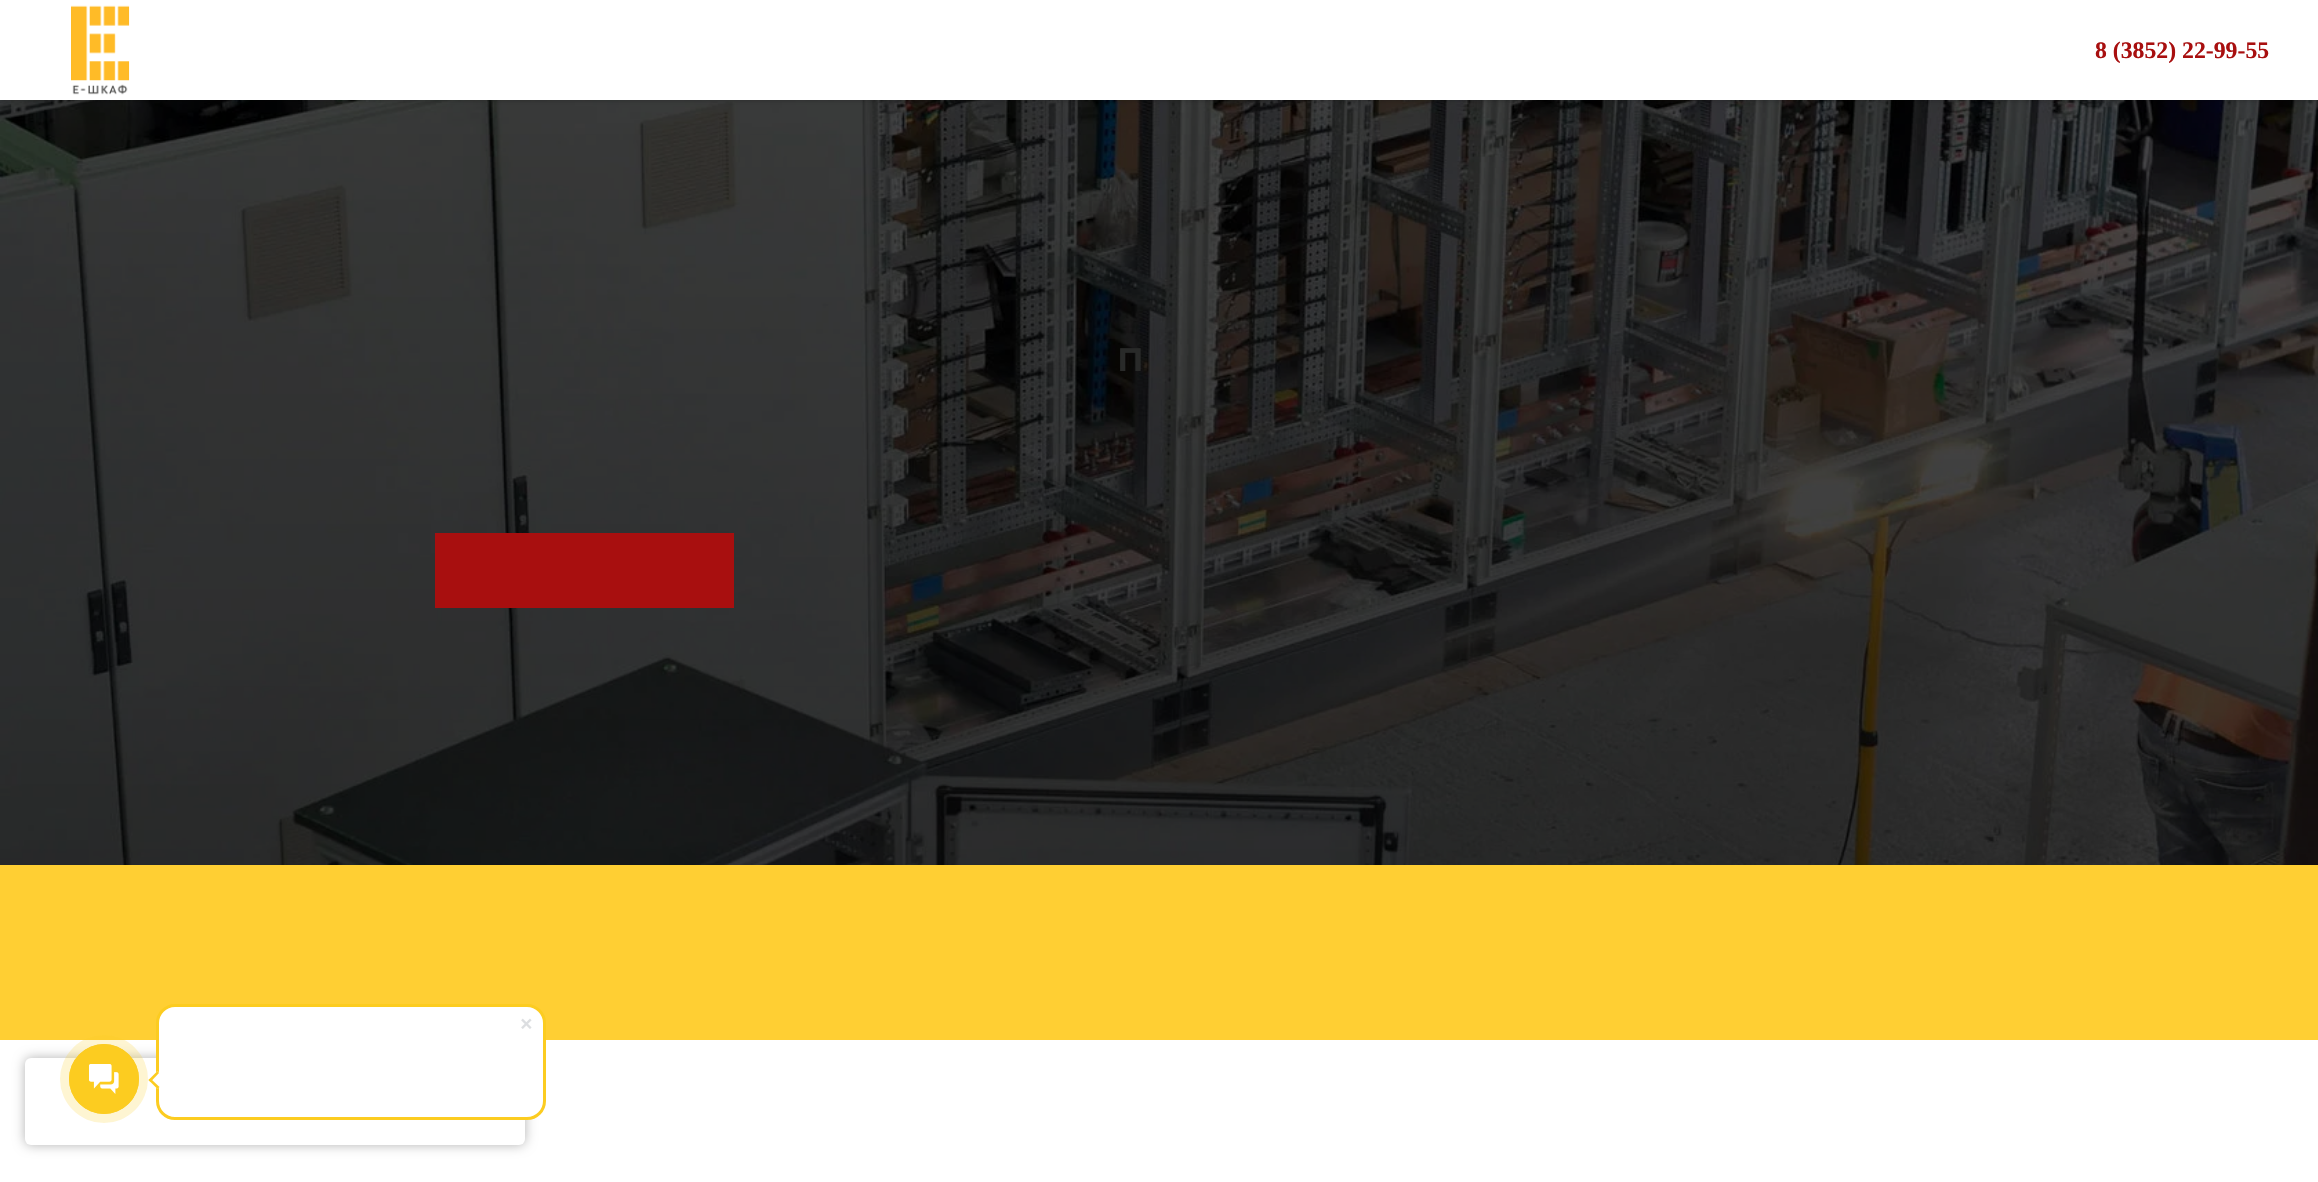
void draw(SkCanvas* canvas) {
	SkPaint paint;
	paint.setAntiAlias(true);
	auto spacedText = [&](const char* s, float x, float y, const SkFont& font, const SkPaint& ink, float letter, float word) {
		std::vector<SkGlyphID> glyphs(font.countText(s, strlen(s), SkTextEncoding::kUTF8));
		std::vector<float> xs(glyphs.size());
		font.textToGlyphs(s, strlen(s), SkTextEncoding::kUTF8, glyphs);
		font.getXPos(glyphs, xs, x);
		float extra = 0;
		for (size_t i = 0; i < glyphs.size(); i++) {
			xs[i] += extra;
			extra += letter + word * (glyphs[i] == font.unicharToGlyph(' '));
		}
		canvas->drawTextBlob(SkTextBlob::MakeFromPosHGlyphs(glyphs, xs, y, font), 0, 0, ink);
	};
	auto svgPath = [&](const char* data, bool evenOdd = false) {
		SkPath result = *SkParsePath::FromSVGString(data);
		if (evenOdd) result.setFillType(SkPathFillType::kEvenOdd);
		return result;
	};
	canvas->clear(0xffffffff);
	canvas->drawImageRect(SkImages::DeferredFromEncodedData(SkData::MakeFromFileName("img2.png")), SkRect::MakeXYWH(0, 100, 2318, 765), SkSamplingOptions());
	paint.setColor(0x33000000);
	paint.setMaskFilter(SkMaskFilter::MakeBlur(kNormal_SkBlurStyle, 2));
	canvas->drawRect(SkRect::MakeXYWH(0, 1, 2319, 100), paint);
	paint.setMaskFilter(nullptr);
	paint.setColor(0xffffffff);
	canvas->drawRect(SkRect::MakeXYWH(0, 0, 2318, 100), paint);
	canvas->drawImageRect(SkImages::DeferredFromEncodedData(SkData::MakeFromFileName("img1.png")), SkRect::MakeXYWH(71, 5, 59, 90), SkSamplingOptions());
	SkFont f1(fontMgr->matchFamilyStyle("Liberation Serif", SkFontStyle::Bold()), 23.75);
	f1.setSubpixel(true);
	paint.setColor(0xffa80f0f);
	canvas->drawString("8 (3852) 22-99-55", 2095, 58, f1, paint);
	SkFont f2(fontMgr->matchFamilyStyle("Anonymous Pro", SkFontStyle::Bold()), 50);
	f2.setSubpixel(true);
	paint.setColor(0xff292a29);
	spacedText("п", 1119, 371, f2, paint, 1, 0);
	paint.setColor(0xffa80f0f);
	canvas->drawRect(SkRect::MakeXYWH(435, 533, 299, 75), paint);
	paint.setColor(0xffffcf33);
	canvas->drawRect(SkRect::MakeXYWH(0, 865, 2318, 175), paint);
	paint.setColor(0x4d000000);
	paint.setMaskFilter(SkMaskFilter::MakeBlur(kNormal_SkBlurStyle, 6));
	canvas->drawRoundRect(SkRect::MakeXYWH(25, 1058, 500, 87), 6, 6, paint);
	paint.setMaskFilter(nullptr);
	paint.setColor(0xffffffff);
	canvas->drawRoundRect(SkRect::MakeXYWH(25, 1058, 500, 87), 6, 6, paint);
	paint.setColor(0x33fccc20);
	canvas->drawCircle(104, 1079, 44, paint);
	paint.setStroke(true);
	paint.setStrokeWidth(1);
	paint.setColor(0xfffccc20);
	canvas->drawCircle(104, 1079, 34.5, paint);
	paint.setStroke(false);
	canvas->drawCircle(104, 1079, 35, paint);
	canvas->drawImageRect(SkImages::DeferredFromEncodedData(SkData::MakeFromFileName("img3.png")), SkRect::MakeXYWH(89, 1064, 30, 30), SkSamplingOptions());
	paint.setColor(0xffffffff);
	canvas->drawRoundRect(SkRect::MakeXYWH(157.5, 1005.5, 387, 113), 17.5, 17.5, paint);
	paint.setStroke(true);
	paint.setStrokeWidth(3);
	paint.setColor(0xfffccc20);
	canvas->drawRoundRect(SkRect::MakeXYWH(157.5, 1005.5, 387, 113), 17.5, 17.5, paint);
	canvas->drawImageRect(SkImages::DeferredFromEncodedData(SkData::MakeFromFileName("img4.png")), SkRect::MakeXYWH(521, 1018, 11, 11), SkSamplingOptions());
	paint.setStroke(false);
	paint.setColor(0xffffffff);
	canvas->drawPath(svgPath("M166.5 1080L157.5 1089L148.5 1080L157.5 1071Z"), paint);
	paint.setColor(0xfffccc20);
	canvas->drawPath(svgPath("M159.5 1087L157.5 1089L148.5 1080L150.5 1078.5Z"), paint);
	canvas->drawPath(svgPath("M159 1073L150.5 1082L148.5 1080L157.5 1071Z"), paint);
}
